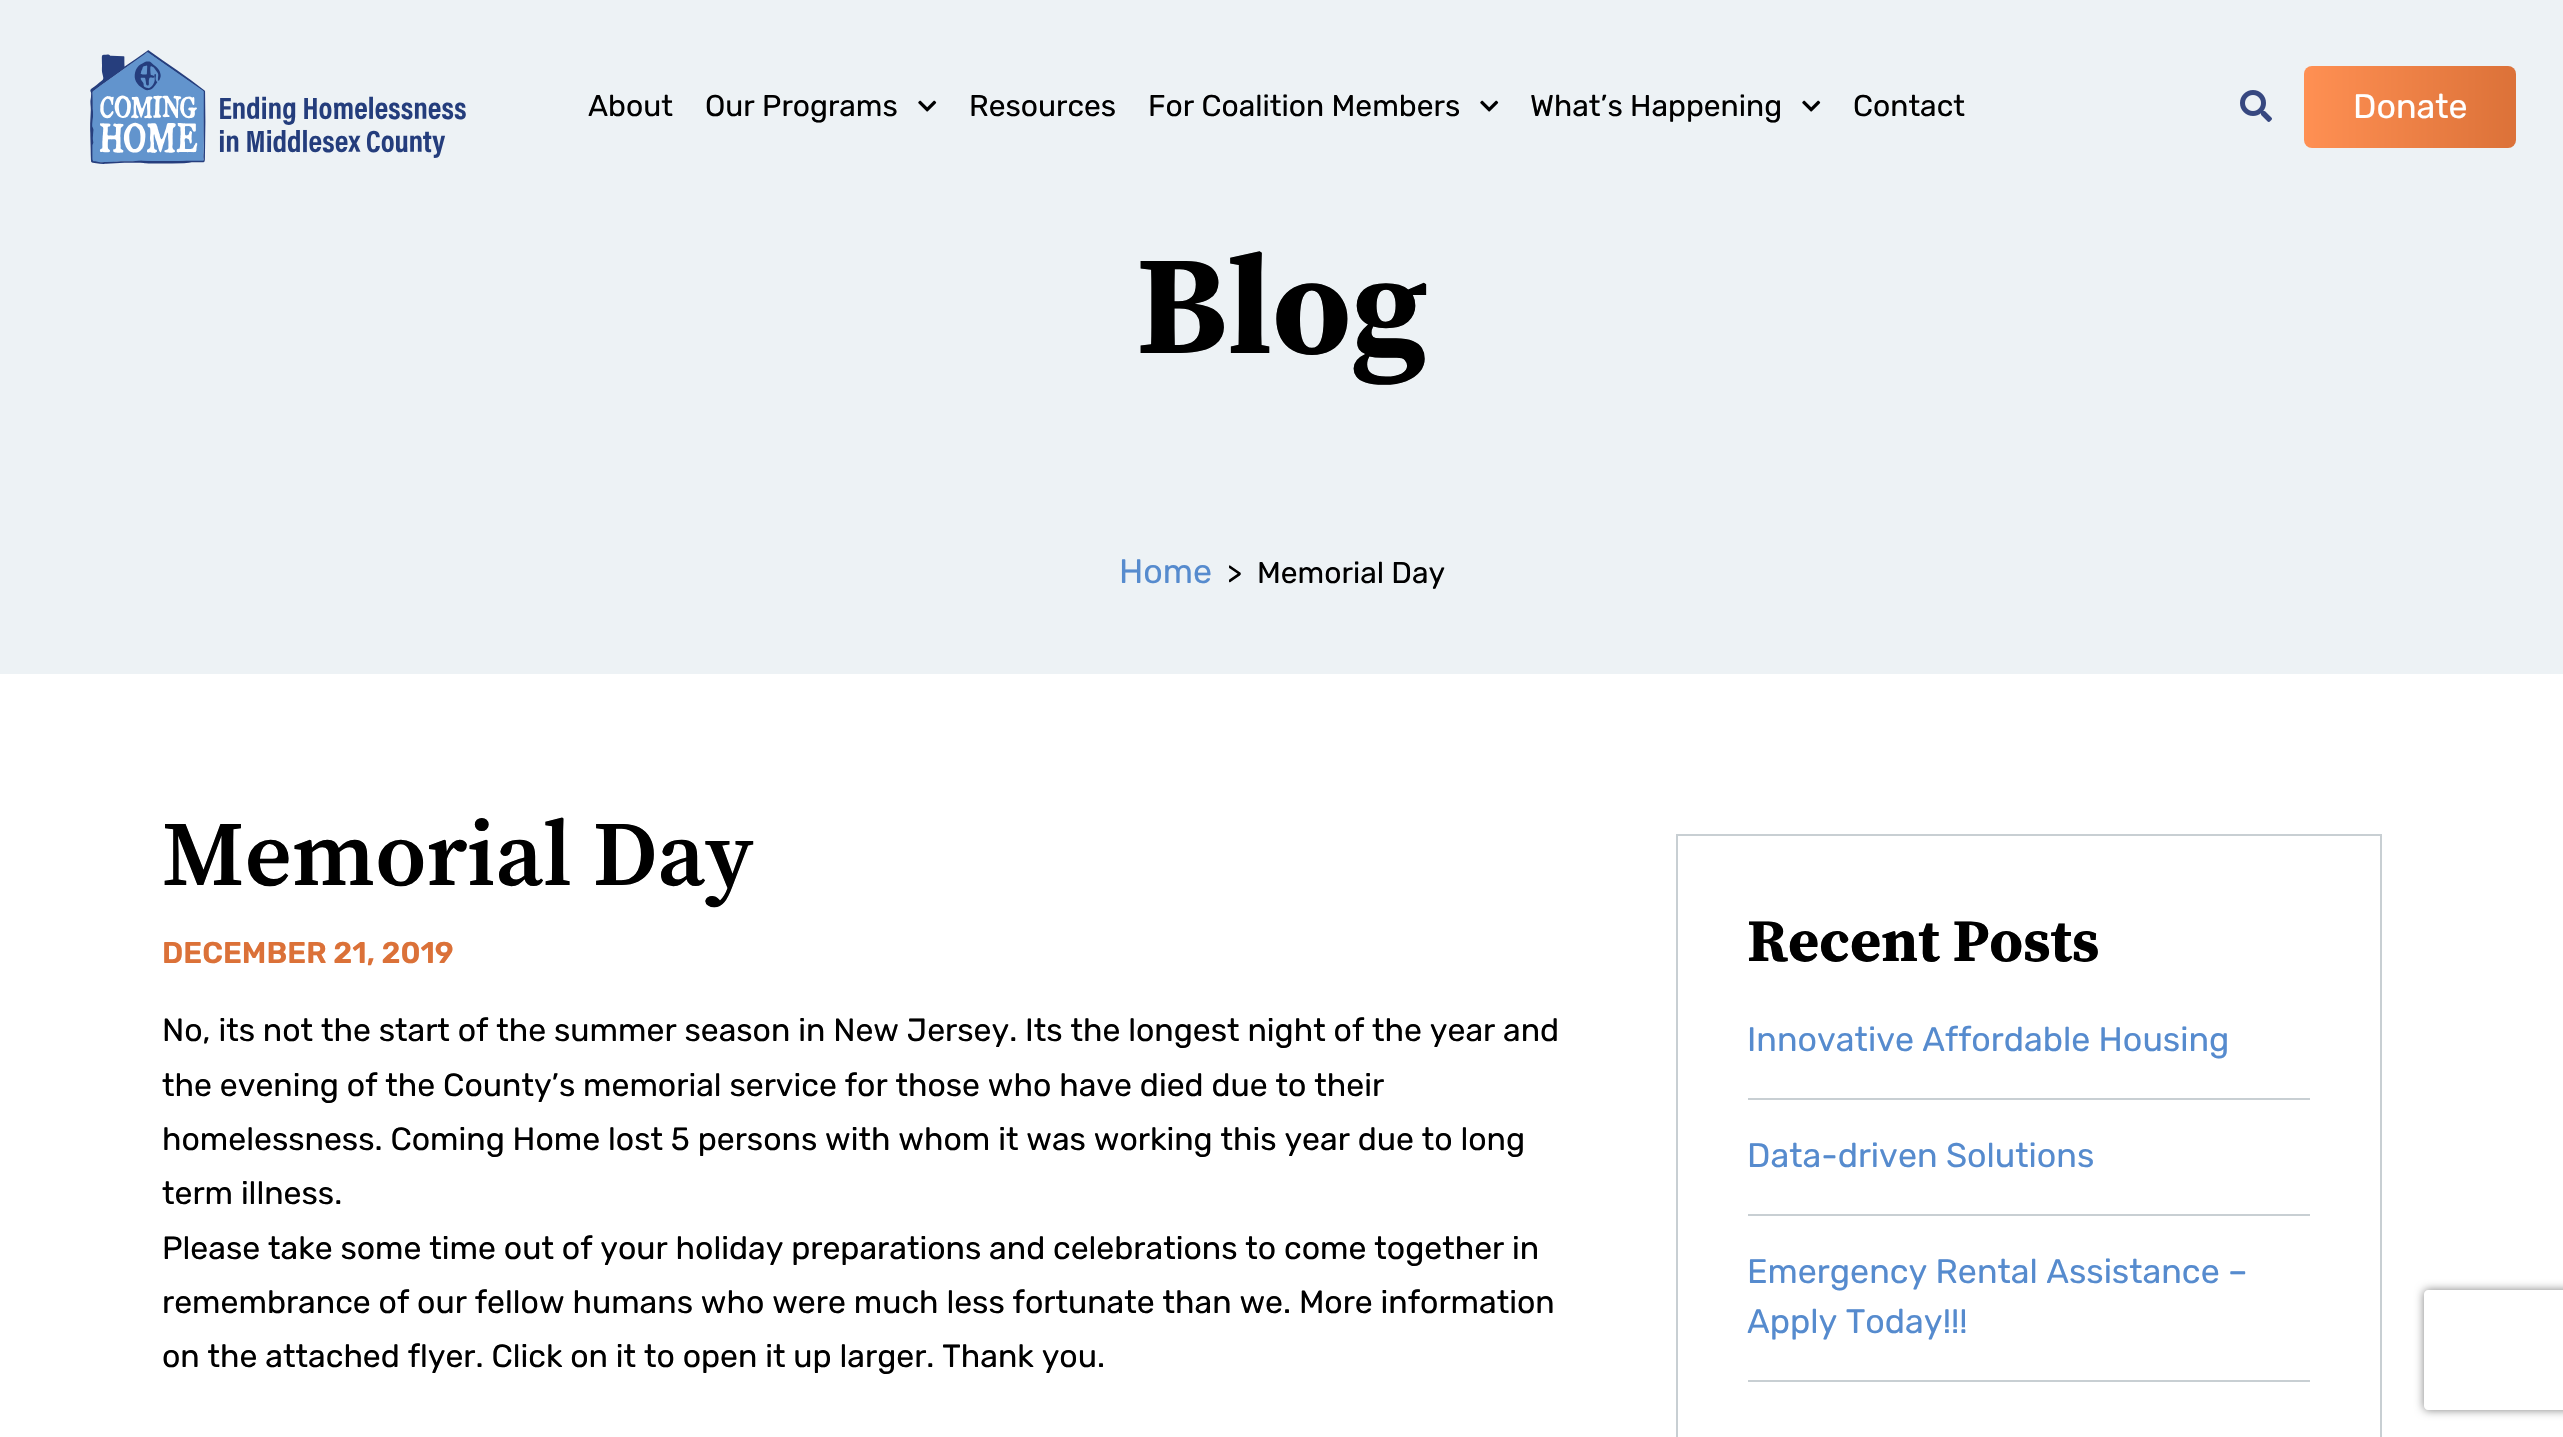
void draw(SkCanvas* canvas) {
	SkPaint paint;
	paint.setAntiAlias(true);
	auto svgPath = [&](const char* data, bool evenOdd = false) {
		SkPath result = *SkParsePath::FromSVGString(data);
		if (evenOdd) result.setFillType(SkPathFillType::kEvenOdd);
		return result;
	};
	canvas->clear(0xffffffff);
	paint.setColor(0xffedf2f5);
	canvas->drawRect(SkRect::MakeXYWH(0, 0, 2563, 674), paint);
	canvas->drawImageRect(SkImages::DeferredFromEncodedData(SkData::MakeFromFileName("img1.png")), SkRect::MakeXYWH(90, 50, 376, 114), SkSamplingOptions());
	SkFont f1(fontMgr->matchFamilyStyle("Rubik", SkFontStyle::Normal()), 30);
	f1.setSubpixel(true);
	paint.setColor(0xff000000);
	canvas->drawString("About", 588, 116, f1, paint);
	canvas->drawString("Our Programs", 705, 116, f1, paint);
	canvas->drawImageRect(SkImages::DeferredFromEncodedData(SkData::MakeFromFileName("img2.png")), SkRect::MakeXYWH(918, 100, 19, 12), SkSamplingOptions());
	canvas->drawString("Resources", 969, 116, f1, paint);
	canvas->drawString("For Coalition Members", 1148, 116, f1, paint);
	canvas->drawImageRect(SkImages::DeferredFromEncodedData(SkData::MakeFromFileName("img2.png")), SkRect::MakeXYWH(1480, 100, 19, 12), SkSamplingOptions());
	canvas->drawString("What’s Happening", 1530, 116, f1, paint);
	canvas->drawImageRect(SkImages::DeferredFromEncodedData(SkData::MakeFromFileName("img2.png")), SkRect::MakeXYWH(1802, 100, 19, 12), SkSamplingOptions());
	canvas->drawString("Contact", 1853, 116, f1, paint);
	canvas->drawImageRect(SkImages::DeferredFromEncodedData(SkData::MakeFromFileName("img3.png")), SkRect::MakeXYWH(2240, 90, 32, 32), SkSamplingOptions());
	{
		const SkColor colors[] = {0xffff9053, 0xffdb7138, 0xffff9053};
		const float stops[] = {0, 0.51, 1};
		const SkPoint ends[] = {{2304, 107}, {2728, 107}};
		paint.setShader(SkGradientShader::MakeLinear(ends, colors, stops, 3, SkTileMode::kClamp));
		paint.setAlpha(255);
	}
	canvas->drawRoundRect(SkRect::MakeXYWH(2304, 66, 212, 82), 8, 8, paint);
	SkFont f2(fontMgr->matchFamilyStyle("Rubik", SkFontStyle::Normal()), 34);
	f2.setSubpixel(true);
	paint.setShader(nullptr);
	paint.setColor(0xffffffff);
	canvas->drawString("Donate", 2353, 118, f2, paint);
	SkFont f3(fontMgr->matchFamilyStyle("Source Serif Pro", SkFontStyle::Bold()), 140);
	f3.setSubpixel(true);
	paint.setColor(0xff000000);
	canvas->drawString("Blog", 1136, 353, f3, paint);
	paint.setColor(0xff568bce);
	canvas->drawString("Home", 1119, 583, f2, paint);
	paint.setColor(0xff000000);
	canvas->drawString(">", 1227, 583, f1, paint);
	canvas->drawString("Memorial Day", 1257, 583, f1, paint);
	SkFont f4(fontMgr->matchFamilyStyle("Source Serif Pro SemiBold", SkFontStyle(600, SkFontStyle::kNormal_Width, SkFontStyle::kUpright_Slant)), 92);
	f4.setSubpixel(true);
	canvas->drawString("Memorial Day", 162, 885, f4, paint);
	SkFont f5(fontMgr->matchFamilyStyle("Rubik", SkFontStyle(600, SkFontStyle::kNormal_Width, SkFontStyle::kUpright_Slant)), 30);
	f5.setSubpixel(true);
	paint.setColor(0xffdb7138);
	canvas->drawString("DECEMBER 21, 2019", 162, 963, f5, paint);
	SkFont f6(fontMgr->matchFamilyStyle("Rubik", SkFontStyle::Normal()), 32);
	f6.setSubpixel(true);
	paint.setColor(0xff000000);
	canvas->drawString("No, its not the start of the summer season in New Jersey. Its the longest night of the year and", 162, 1041, f6, paint);
	canvas->drawString("the evening of the County’s memorial service for those who have died due to their", 162, 1096, f6, paint);
	canvas->drawString("homelessness. Coming Home lost 5 persons with whom it was working this year due to long", 162, 1150, f6, paint);
	canvas->drawString("term illness.", 162, 1204, f6, paint);
	canvas->drawString("Please take some time out of your holiday preparations and celebrations to come together in", 162, 1259, f6, paint);
	canvas->drawString("remembrance of our fellow humans who were much less fortunate than we. More information", 162, 1313, f6, paint);
	canvas->drawString("on the attached flyer. Click on it to open it up larger. Thank you.", 162, 1367, f6, paint);
	paint.setStroke(true);
	paint.setStrokeWidth(2);
	paint.setColor(0xffc8cfd3);
	canvas->drawRect(SkRect::MakeXYWH(1677, 835, 704, 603), paint);
	SkFont f7(fontMgr->matchFamilyStyle("Source Serif Pro", SkFontStyle::Bold()), 60);
	f7.setSubpixel(true);
	paint.setStroke(false);
	paint.setColor(0xff000000);
	canvas->drawString("Recent Posts", 1747, 961, f7, paint);
	paint.setColor(0xffc8cfd3);
	canvas->drawRect(SkRect::MakeXYWH(1748, 1098, 562, 2), paint);
	paint.setColor(0xff568bce);
	canvas->drawString("Innovative Affordable Housing", 1747, 1051, f2, paint);
	paint.setColor(0xffc8cfd3);
	canvas->drawRect(SkRect::MakeXYWH(1748, 1214, 562, 2), paint);
	paint.setColor(0xff568bce);
	canvas->drawString("Data-driven Solutions", 1747, 1167, f2, paint);
	paint.setColor(0xffc8cfd3);
	canvas->drawRect(SkRect::MakeXYWH(1748, 1380, 562, 2), paint);
	paint.setColor(0xff568bce);
	canvas->drawString("Emergency Rental Assistance –", 1747, 1283, f2, paint);
	canvas->drawString("Apply Today!!!", 1747, 1333, f2, paint);
	canvas->save();
	canvas->clipPath(svgPath("M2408 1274H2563V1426H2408ZM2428 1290H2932C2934 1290 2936 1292 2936 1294V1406C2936 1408 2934 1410 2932 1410H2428C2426 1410 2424 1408 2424 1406V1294C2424 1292 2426 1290 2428 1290Z", true), true);
	paint.setColor(0xff808080);
	paint.setMaskFilter(SkMaskFilter::MakeBlur(kNormal_SkBlurStyle, 5));
	canvas->drawRoundRect(SkRect::MakeXYWH(2424, 1290, 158, 120), 4, 4, paint);
	paint.setMaskFilter(nullptr);
	canvas->restore();
}
